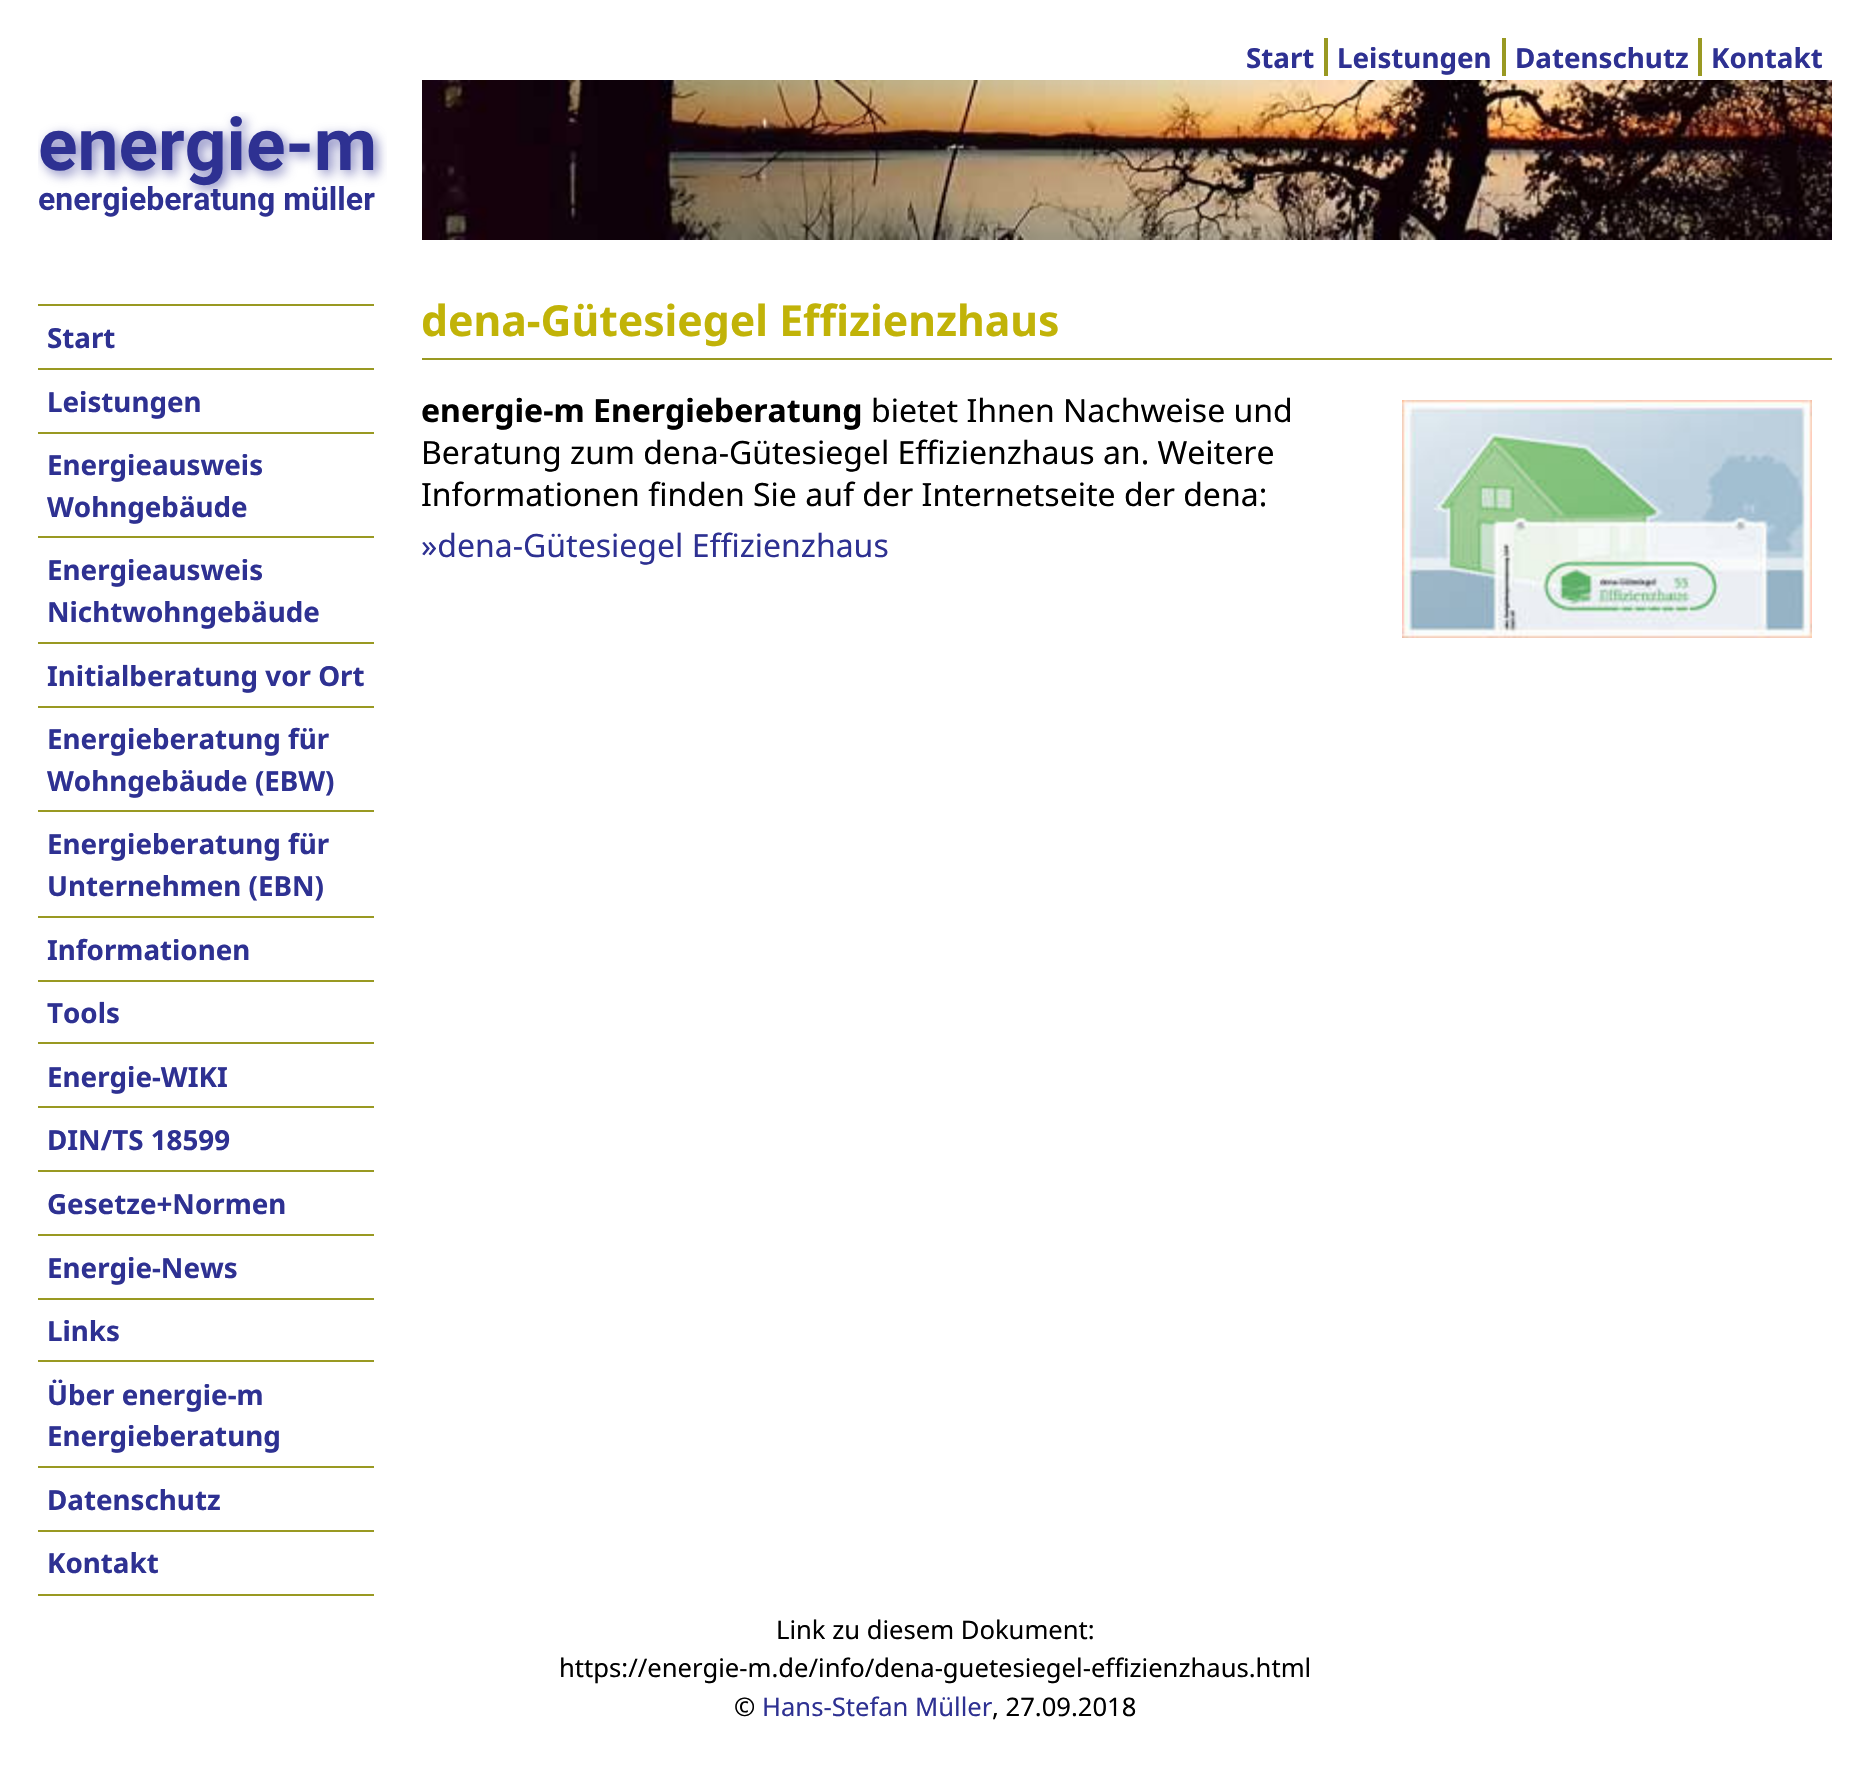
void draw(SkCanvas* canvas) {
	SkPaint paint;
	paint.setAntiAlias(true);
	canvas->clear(0xffffffff);
	SkFont f1(fontMgr->matchFamilyStyle("Noto Sans", SkFontStyle::Bold()), 27.75);
	f1.setSubpixel(true);
	paint.setColor(0xff2e3192);
	canvas->drawString("Start", 1246, 68, f1, paint);
	paint.setColor(0xff999922);
	canvas->drawRect(SkRect::MakeXYWH(1324, 38, 4, 38), paint);
	paint.setColor(0xff2e3192);
	canvas->drawString("Leistungen", 1337, 68, f1, paint);
	canvas->drawString("Datenschutz", 1515, 68, f1, paint);
	paint.setColor(0xff999922);
	canvas->drawRect(SkRect::MakeXYWH(1502, 38, 4, 38), paint);
	canvas->drawRect(SkRect::MakeXYWH(1698, 38, 4, 38), paint);
	paint.setColor(0xff2e3192);
	canvas->drawString("Kontakt", 1711, 68, f1, paint);
	canvas->drawImageRect(SkImages::DeferredFromEncodedData(SkData::MakeFromFileName("img1.png")), SkRect::MakeXYWH(38, 112, 349, 105), SkSamplingOptions());
	canvas->drawImageRect(SkImages::DeferredFromEncodedData(SkData::MakeFromFileName("img2.png")), SkRect::MakeXYWH(422, 80, 1410, 160), SkSamplingOptions());
	paint.setColor(0xff999922);
	canvas->drawRect(SkRect::MakeXYWH(38, 304, 336, 2), paint);
	canvas->drawRect(SkRect::MakeXYWH(38, 368, 336, 2), paint);
	paint.setColor(0xff2e3192);
	canvas->drawString("Start", 47, 348, f1, paint);
	paint.setColor(0xff999922);
	canvas->drawRect(SkRect::MakeXYWH(38, 432, 336, 2), paint);
	paint.setColor(0xff2e3192);
	canvas->drawString("Leistungen", 47, 412, f1, paint);
	paint.setColor(0xff999922);
	canvas->drawRect(SkRect::MakeXYWH(38, 536, 336, 2), paint);
	paint.setColor(0xff2e3192);
	canvas->drawString("Energieausweis", 47, 475, f1, paint);
	canvas->drawString("Wohngebäude", 47, 517, f1, paint);
	paint.setColor(0xff999922);
	canvas->drawRect(SkRect::MakeXYWH(38, 642, 336, 2), paint);
	paint.setColor(0xff2e3192);
	canvas->drawString("Energieausweis", 47, 580, f1, paint);
	canvas->drawString("Nichtwohngebäude", 47, 622, f1, paint);
	paint.setColor(0xff999922);
	canvas->drawRect(SkRect::MakeXYWH(38, 706, 336, 2), paint);
	paint.setColor(0xff2e3192);
	canvas->drawString("Initialberatung vor Ort", 47, 686, f1, paint);
	paint.setColor(0xff999922);
	canvas->drawRect(SkRect::MakeXYWH(38, 810, 336, 2), paint);
	paint.setColor(0xff2e3192);
	canvas->drawString("Energieberatung für", 47, 749, f1, paint);
	canvas->drawString("Wohngebäude (EBW)", 47, 791, f1, paint);
	paint.setColor(0xff999922);
	canvas->drawRect(SkRect::MakeXYWH(38, 916, 336, 2), paint);
	paint.setColor(0xff2e3192);
	canvas->drawString("Energieberatung für", 47, 854, f1, paint);
	canvas->drawString("Unternehmen (EBN)", 47, 896, f1, paint);
	paint.setColor(0xff999922);
	canvas->drawRect(SkRect::MakeXYWH(38, 980, 336, 2), paint);
	paint.setColor(0xff2e3192);
	canvas->drawString("Informationen", 47, 960, f1, paint);
	paint.setColor(0xff999922);
	canvas->drawRect(SkRect::MakeXYWH(38, 1042, 336, 2), paint);
	paint.setColor(0xff2e3192);
	canvas->drawString("Tools", 47, 1023, f1, paint);
	paint.setColor(0xff999922);
	canvas->drawRect(SkRect::MakeXYWH(38, 1106, 336, 2), paint);
	paint.setColor(0xff2e3192);
	canvas->drawString("Energie-WIKI", 47, 1087, f1, paint);
	paint.setColor(0xff999922);
	canvas->drawRect(SkRect::MakeXYWH(38, 1170, 336, 2), paint);
	paint.setColor(0xff2e3192);
	canvas->drawString("DIN/TS 18599", 47, 1150, f1, paint);
	paint.setColor(0xff999922);
	canvas->drawRect(SkRect::MakeXYWH(38, 1234, 336, 2), paint);
	paint.setColor(0xff2e3192);
	canvas->drawString("Gesetze+Normen", 47, 1214, f1, paint);
	paint.setColor(0xff999922);
	canvas->drawRect(SkRect::MakeXYWH(38, 1298, 336, 2), paint);
	paint.setColor(0xff2e3192);
	canvas->drawString("Energie-News", 47, 1278, f1, paint);
	paint.setColor(0xff999922);
	canvas->drawRect(SkRect::MakeXYWH(38, 1360, 336, 2), paint);
	paint.setColor(0xff2e3192);
	canvas->drawString("Links", 47, 1341, f1, paint);
	paint.setColor(0xff999922);
	canvas->drawRect(SkRect::MakeXYWH(38, 1466, 336, 2), paint);
	paint.setColor(0xff2e3192);
	canvas->drawString("Über energie-m", 47, 1405, f1, paint);
	canvas->drawString("Energieberatung", 47, 1446, f1, paint);
	paint.setColor(0xff999922);
	canvas->drawRect(SkRect::MakeXYWH(38, 1530, 336, 2), paint);
	paint.setColor(0xff2e3192);
	canvas->drawString("Datenschutz", 47, 1510, f1, paint);
	paint.setColor(0xff999922);
	canvas->drawRect(SkRect::MakeXYWH(38, 1594, 336, 2), paint);
	paint.setColor(0xff2e3192);
	canvas->drawString("Kontakt", 47, 1573, f1, paint);
	paint.setColor(0xff999922);
	canvas->drawRect(SkRect::MakeXYWH(422, 358, 1410, 2), paint);
	SkFont f2(fontMgr->matchFamilyStyle("Noto Sans", SkFontStyle::Bold()), 42.7);
	f2.setSubpixel(true);
	paint.setColor(0xffc1b308);
	canvas->drawString("dena-Gütesiegel Effizienzhaus", 421, 336, f2, paint);
	SkFont f3(fontMgr->matchFamilyStyle("Noto Sans", SkFontStyle::Bold()), 32);
	f3.setSubpixel(true);
	paint.setColor(0xff000000);
	canvas->drawString("energie-m Energieberatung", 421, 422, f3, paint);
	SkFont f4(fontMgr->matchFamilyStyle("Noto Sans", SkFontStyle::Normal()), 32);
	f4.setSubpixel(true);
	canvas->drawString("bietet Ihnen Nachweise und", 871, 422, f4, paint);
	canvas->drawImageRect(SkImages::DeferredFromEncodedData(SkData::MakeFromFileName("img3.png")), SkRect::MakeXYWH(1402, 400, 410, 238), SkSamplingOptions());
	canvas->drawString("Beratung zum dena-Gütesiegel Effizienzhaus an. Weitere", 421, 464, f4, paint);
	canvas->drawString("Informationen finden Sie auf der Internetseite der dena:", 421, 506, f4, paint);
	paint.setColor(0xff2e3192);
	canvas->drawString("»dena-Gütesiegel Effizienzhaus", 421, 557, f4, paint);
	SkFont f5(fontMgr->matchFamilyStyle("Noto Sans", SkFontStyle::Normal()), 25.6);
	f5.setSubpixel(true);
	paint.setColor(0xff000000);
	canvas->drawString("Link zu diesem Dokument:", 776, 1639, f5, paint);
	canvas->drawString("https://energie-m.de/info/dena-guetesiegel-effizienzhaus.html", 559, 1677, f5, paint);
	canvas->drawString("©", 734, 1716, f5, paint);
	paint.setColor(0xff2e3192);
	canvas->drawString("Hans-Stefan Müller", 762, 1716, f5, paint);
	paint.setColor(0xff000000);
	canvas->drawString(", 27.09.2018", 992, 1716, f5, paint);
}
